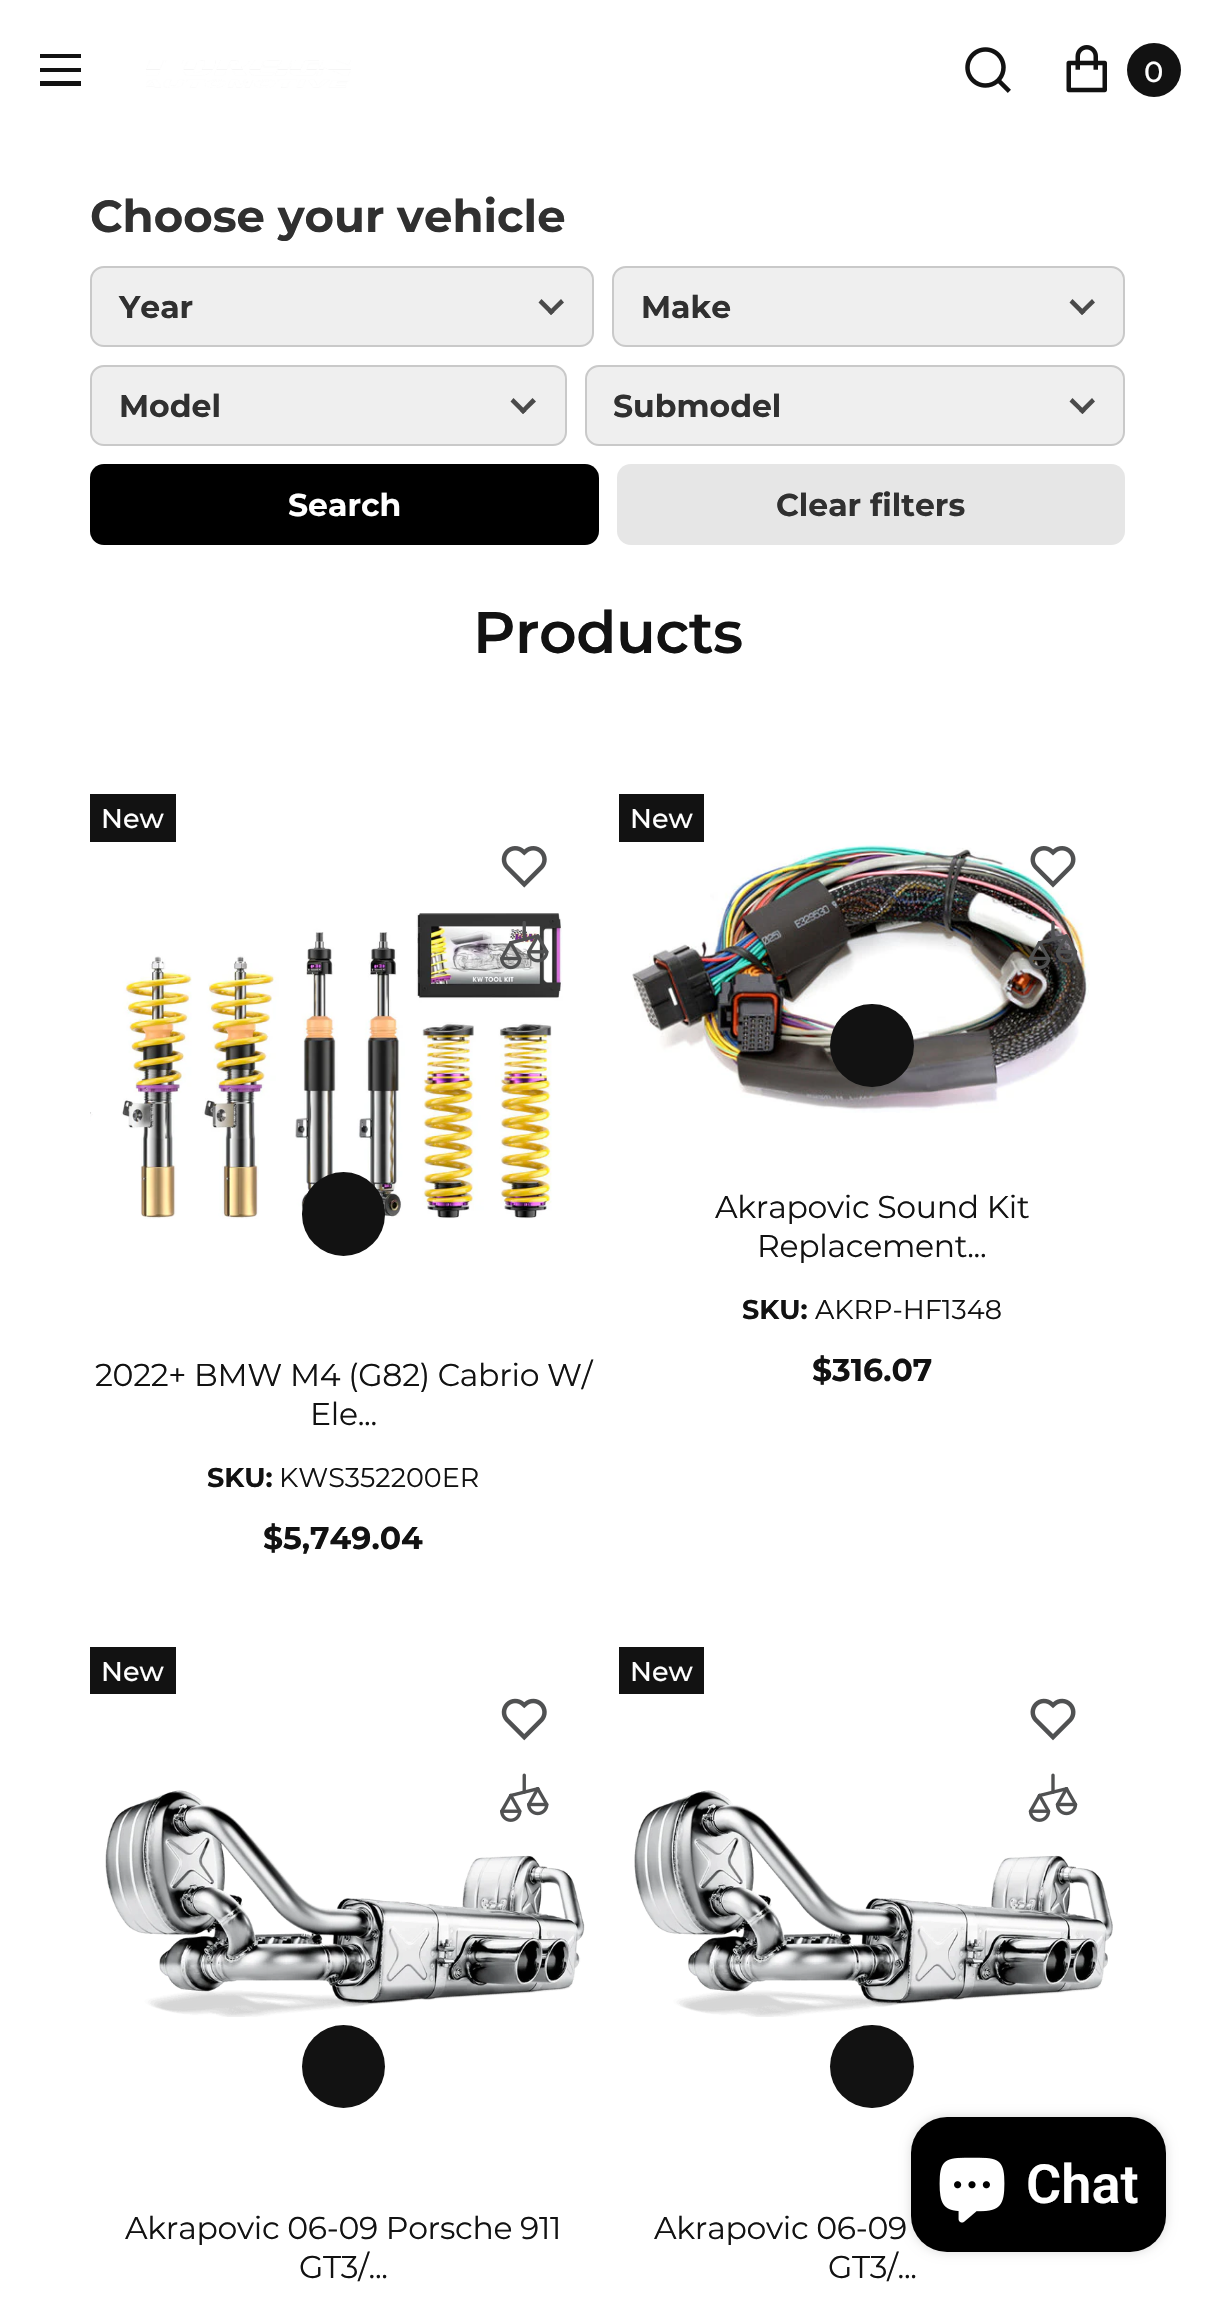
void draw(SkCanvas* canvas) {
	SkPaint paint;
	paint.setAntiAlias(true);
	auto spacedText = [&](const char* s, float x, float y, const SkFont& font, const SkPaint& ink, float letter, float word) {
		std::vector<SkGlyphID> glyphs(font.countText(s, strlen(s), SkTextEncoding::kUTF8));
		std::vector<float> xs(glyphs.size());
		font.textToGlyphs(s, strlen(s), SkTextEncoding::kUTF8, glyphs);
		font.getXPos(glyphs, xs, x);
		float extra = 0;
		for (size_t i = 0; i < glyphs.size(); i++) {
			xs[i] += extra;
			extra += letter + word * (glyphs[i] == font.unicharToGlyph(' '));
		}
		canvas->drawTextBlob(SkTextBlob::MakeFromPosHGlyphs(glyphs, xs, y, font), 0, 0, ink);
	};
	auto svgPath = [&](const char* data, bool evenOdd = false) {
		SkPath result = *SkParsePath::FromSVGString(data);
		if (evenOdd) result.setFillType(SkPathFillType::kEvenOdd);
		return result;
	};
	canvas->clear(0xffffffff);
	paint.setColor(0xff121212);
	canvas->drawRect(SkRect::MakeXYWH(40, 54, 41, 4), paint);
	canvas->drawRect(SkRect::MakeXYWH(40, 68, 41, 4), paint);
	canvas->drawRect(SkRect::MakeXYWH(40, 81, 41, 5), paint);
	canvas->drawImageRect(SkImages::DeferredFromEncodedData(SkData::MakeFromFileName("img1.png")), SkRect::MakeXYWH(146, 60, 205, 28), SkSamplingOptions());
	canvas->drawImageRect(SkImages::DeferredFromEncodedData(SkData::MakeFromFileName("img2.png")), SkRect::MakeXYWH(965, 47, 46, 46), SkSamplingOptions());
	canvas->drawImageRect(SkImages::DeferredFromEncodedData(SkData::MakeFromFileName("img3.png")), SkRect::MakeXYWH(1066, 45, 41, 48), SkSamplingOptions());
	canvas->drawCircle(1154, 70, 27, paint);
	SkFont f1(fontMgr->matchFamilyStyle("Montserrat", SkFontStyle(500, SkFontStyle::kNormal_Width, SkFontStyle::kUpright_Slant)), 29);
	f1.setSubpixel(true);
	paint.setColor(0xffffffff);
	canvas->drawString("0", 1144, 82, f1, paint);
	SkFont f2(fontMgr->matchFamilyStyle("Montserrat", SkFontStyle::Bold()), 45);
	f2.setSubpixel(true);
	paint.setColor(0xff303030);
	canvas->drawString("Choose your vehicle", 90, 232, f2, paint);
	paint.setColor(0xffefefef);
	canvas->drawRoundRect(SkRect::MakeXYWH(91, 267, 502, 79), 13, 13, paint);
	paint.setStroke(true);
	paint.setStrokeWidth(2);
	paint.setColor(0xffc9c9c9);
	canvas->drawRoundRect(SkRect::MakeXYWH(91, 267, 502, 79), 13, 13, paint);
	SkFont f3(fontMgr->matchFamilyStyle("Montserrat", SkFontStyle::Bold()), 31.5);
	f3.setSubpixel(true);
	paint.setStroke(false);
	paint.setColor(0xff303030);
	canvas->drawString("Year", 119, 318, f3, paint);
	paint.setColor(0xff4a4a4a);
	canvas->drawPath(svgPath("M561 299L564 302.5L551 315L548 312Z"), paint);
	canvas->drawPath(svgPath("M541.5 299L554.5 312L551 315L538.5 302.5Z"), paint);
	paint.setColor(0xffefefef);
	canvas->drawRoundRect(SkRect::MakeXYWH(613, 267, 511, 79), 13, 13, paint);
	paint.setStroke(true);
	paint.setColor(0xffc9c9c9);
	canvas->drawRoundRect(SkRect::MakeXYWH(613, 267, 511, 79), 13, 13, paint);
	paint.setStroke(false);
	paint.setColor(0xff303030);
	canvas->drawString("Make", 641, 318, f3, paint);
	paint.setColor(0xff4a4a4a);
	canvas->drawPath(svgPath("M1092 299L1095 302.5L1082 315L1079 312Z"), paint);
	canvas->drawPath(svgPath("M1072.5 299L1085.5 312L1082 315L1069.5 302.5Z"), paint);
	paint.setColor(0xffefefef);
	canvas->drawRoundRect(SkRect::MakeXYWH(91, 366, 475, 79), 13, 13, paint);
	paint.setStroke(true);
	paint.setColor(0xffc9c9c9);
	canvas->drawRoundRect(SkRect::MakeXYWH(91, 366, 475, 79), 13, 13, paint);
	paint.setStroke(false);
	paint.setColor(0xff303030);
	canvas->drawString("Model", 119, 417, f3, paint);
	paint.setColor(0xff4a4a4a);
	canvas->drawPath(svgPath("M532.5 398L536 401.5L523 414L520 411Z"), paint);
	canvas->drawPath(svgPath("M513.5 398L526.5 411L523 414L510.5 401.5Z"), paint);
	paint.setColor(0xffefefef);
	canvas->drawRoundRect(SkRect::MakeXYWH(586, 366, 538, 79), 13, 13, paint);
	paint.setStroke(true);
	paint.setColor(0xffc9c9c9);
	canvas->drawRoundRect(SkRect::MakeXYWH(586, 366, 538, 79), 13, 13, paint);
	paint.setStroke(false);
	paint.setColor(0xff303030);
	canvas->drawString("Submodel", 613, 417, f3, paint);
	paint.setColor(0xff4a4a4a);
	canvas->drawPath(svgPath("M1092 398L1095 401.5L1082.5 414L1079 411Z"), paint);
	canvas->drawPath(svgPath("M1072.5 398L1085.5 411L1082.5 414L1069.5 401.5Z"), paint);
	paint.setColor(0xff000000);
	canvas->drawRoundRect(SkRect::MakeXYWH(90, 464, 509, 81), 14, 14, paint);
	paint.setColor(0xffffffff);
	canvas->drawString("Search", 288, 516, f3, paint);
	paint.setColor(0xffe6e6e6);
	canvas->drawRoundRect(SkRect::MakeXYWH(617, 464, 508, 81), 14, 14, paint);
	paint.setColor(0xff303030);
	canvas->drawString("Clear filters", 776, 516, f3, paint);
	SkFont f4(fontMgr->matchFamilyStyle("Montserrat", SkFontStyle(600, SkFontStyle::kNormal_Width, SkFontStyle::kUpright_Slant)), 58.5);
	f4.setSubpixel(true);
	paint.setColor(0xff121212);
	spacedText("Products", 473, 653, f4, paint, -0.5, 0);
	canvas->drawRect(SkRect::MakeXYWH(90, 794, 86, 48), paint);
	SkFont f5(fontMgr->matchFamilyStyle("Montserrat", SkFontStyle(500, SkFontStyle::kNormal_Width, SkFontStyle::kUpright_Slant)), 27);
	f5.setSubpixel(true);
	paint.setColor(0xffffffff);
	canvas->drawString("New", 101, 828, f5, paint);
	canvas->drawImageRect(SkImages::DeferredFromEncodedData(SkData::MakeFromFileName("img4.png")), SkRect::MakeXYWH(90, 913, 473, 306), SkSamplingOptions());
	paint.setColor(0xff121212);
	canvas->drawRoundRect(SkRect::MakeXYWH(302, 1172, 83, 84), 41.5, 41.5, paint);
	SkFont f6(fontMgr->matchFamilyStyle("Montserrat", SkFontStyle::Normal()), 31.5);
	f6.setSubpixel(true);
	spacedText("2022+ BMW M4 (G82) Cabrio W/", 95, 1386, f6, paint, -0.3, 0);
	spacedText("Ele...", 310, 1425, f6, paint, -0.3, 0);
	SkFont f7(fontMgr->matchFamilyStyle("Montserrat", SkFontStyle::Bold()), 27);
	f7.setSubpixel(true);
	canvas->drawString("SKU:", 207, 1487, f7, paint);
	SkFont f8(fontMgr->matchFamilyStyle("Montserrat", SkFontStyle::Normal()), 27);
	f8.setSubpixel(true);
	canvas->drawString("KWS352200ER", 279, 1487, f8, paint);
	canvas->drawImageRect(SkImages::DeferredFromEncodedData(SkData::MakeFromFileName("img5.png")), SkRect::MakeXYWH(501, 846, 46, 42), SkSamplingOptions());
	canvas->drawImageRect(SkImages::DeferredFromEncodedData(SkData::MakeFromFileName("img6.png")), SkRect::MakeXYWH(500, 921, 49, 49), SkSamplingOptions());
	canvas->drawString("$5,749.04", 263, 1549, f3, paint);
	canvas->drawRect(SkRect::MakeXYWH(619, 794, 85, 48), paint);
	paint.setColor(0xffffffff);
	canvas->drawString("New", 630, 828, f5, paint);
	canvas->drawImageRect(SkImages::DeferredFromEncodedData(SkData::MakeFromFileName("img7.png")), SkRect::MakeXYWH(632, 842, 458, 271), SkSamplingOptions());
	paint.setColor(0xff121212);
	canvas->drawRoundRect(SkRect::MakeXYWH(830, 1004, 84, 83), 41.5, 41.5, paint);
	spacedText("Akrapovic Sound Kit", 715, 1218, f6, paint, -0.3, 0);
	spacedText("Replacement...", 757, 1257, f6, paint, -0.3, 0);
	canvas->drawString("SKU:", 742, 1319, f7, paint);
	canvas->drawString("AKRP-HF1348", 815, 1319, f8, paint);
	canvas->drawImageRect(SkImages::DeferredFromEncodedData(SkData::MakeFromFileName("img8.png")), SkRect::MakeXYWH(1030, 846, 46, 42), SkSamplingOptions());
	canvas->drawImageRect(SkImages::DeferredFromEncodedData(SkData::MakeFromFileName("img9.png")), SkRect::MakeXYWH(1028, 920, 50, 49), SkSamplingOptions());
	canvas->drawString("$316.07", 812, 1381, f3, paint);
	canvas->drawRect(SkRect::MakeXYWH(90, 1647, 86, 47), paint);
	paint.setColor(0xffffffff);
	canvas->drawString("New", 101, 1681, f5, paint);
	canvas->drawImageRect(SkImages::DeferredFromEncodedData(SkData::MakeFromFileName("img10.png")), SkRect::MakeXYWH(105, 1790, 480, 227), SkSamplingOptions());
	paint.setColor(0xff121212);
	canvas->drawCircle(343.5, 2066.5, 41.5, paint);
	canvas->drawImageRect(SkImages::DeferredFromEncodedData(SkData::MakeFromFileName("img11.png")), SkRect::MakeXYWH(501, 1698, 46, 43), SkSamplingOptions());
	canvas->drawImageRect(SkImages::DeferredFromEncodedData(SkData::MakeFromFileName("img12.png")), SkRect::MakeXYWH(500, 1773, 49, 49), SkSamplingOptions());
	spacedText("Akrapovic 06-09 Porsche 911", 125, 2239, f6, paint, -0.3, 0);
	spacedText("GT3/...", 299, 2278, f6, paint, -0.3, 0);
	canvas->drawRect(SkRect::MakeXYWH(619, 1647, 85, 47), paint);
	paint.setColor(0xffffffff);
	canvas->drawString("New", 630, 1681, f5, paint);
	canvas->drawImageRect(SkImages::DeferredFromEncodedData(SkData::MakeFromFileName("img13.png")), SkRect::MakeXYWH(634, 1790, 479, 227), SkSamplingOptions());
	paint.setColor(0xff121212);
	canvas->drawRoundRect(SkRect::MakeXYWH(830, 2025, 84, 83), 41.5, 41.5, paint);
	canvas->drawImageRect(SkImages::DeferredFromEncodedData(SkData::MakeFromFileName("img14.png")), SkRect::MakeXYWH(1030, 1698, 46, 43), SkSamplingOptions());
	canvas->drawImageRect(SkImages::DeferredFromEncodedData(SkData::MakeFromFileName("img15.png")), SkRect::MakeXYWH(1028, 1773, 50, 49), SkSamplingOptions());
	spacedText("Akrapovic 06-09", 654, 2239, f6, paint, -0.3, 0);
	spacedText("GT3/...", 828, 2278, f6, paint, -0.3, 0);
	paint.setColor(0x26000000);
	paint.setMaskFilter(SkMaskFilter::MakeBlur(kNormal_SkBlurStyle, 5.5));
	canvas->drawRoundRect(SkRect::MakeXYWH(911, 2117, 255, 135), 36, 36, paint);
	paint.setMaskFilter(nullptr);
	paint.setColor(0xff000000);
	canvas->drawRoundRect(SkRect::MakeXYWH(911, 2117, 255, 135), 36, 36, paint);
	canvas->drawImageRect(SkImages::DeferredFromEncodedData(SkData::MakeFromFileName("img16.png")), SkRect::MakeXYWH(939, 2157, 66, 66), SkSamplingOptions());
	SkFont f9(fontMgr->matchFamilyStyle("Roboto", SkFontStyle(600, SkFontStyle::kNormal_Width, SkFontStyle::kUpright_Slant)), 54);
	f9.setSubpixel(true);
	paint.setColor(0xffffffff);
	canvas->drawString("Chat", 1026, 2203, f9, paint);
}
